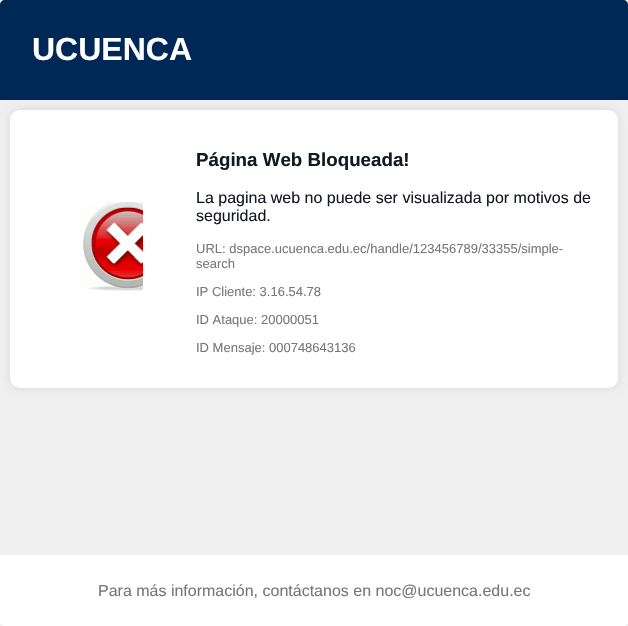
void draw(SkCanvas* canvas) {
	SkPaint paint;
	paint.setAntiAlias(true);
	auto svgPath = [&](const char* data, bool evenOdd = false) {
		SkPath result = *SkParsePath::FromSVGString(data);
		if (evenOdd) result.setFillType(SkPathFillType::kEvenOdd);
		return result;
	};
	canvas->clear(0xfff0f0f0);
	paint.setColor(0xff002856);
	canvas->drawPath(svgPath("M5 0H623C626 0 628 2 628 5V100H0V5C0 2 2 0 5 0Z"), paint);
	SkFont f1(fontMgr->matchFamilyStyle("Liberation Sans", SkFontStyle::Bold()), 32);
	f1.setSubpixel(true);
	paint.setColor(0xffffffff);
	canvas->drawString("UCUENCA", 32, 60, f1, paint);
	paint.setColor(0x1a000000);
	paint.setMaskFilter(SkMaskFilter::MakeBlur(kNormal_SkBlurStyle, 5));
	canvas->drawRoundRect(SkRect::MakeXYWH(10, 110, 608, 278), 10, 10, paint);
	paint.setMaskFilter(nullptr);
	paint.setColor(0xffffffff);
	canvas->drawRoundRect(SkRect::MakeXYWH(10, 110, 608, 278), 10, 10, paint);
	canvas->drawImageRect(SkImages::DeferredFromEncodedData(SkData::MakeFromFileName("img1.png")), SkRect::MakeXYWH(83, 202, 60, 89), SkSamplingOptions());
	SkFont f2(fontMgr->matchFamilyStyle("Liberation Sans", SkFontStyle::Bold()), 18.75);
	f2.setSubpixel(true);
	paint.setColor(0xff121923);
	canvas->drawString("Página Web Bloqueada!", 196, 166, f2, paint);
	SkFont f3(fontMgr->matchFamilyStyle("Liberation Sans", SkFontStyle::Normal()), 16);
	f3.setSubpixel(true);
	canvas->drawString("La pagina web no puede ser visualizada por motivos de", 196, 203, f3, paint);
	canvas->drawString("seguridad.", 196, 221, f3, paint);
	SkFont f4(fontMgr->matchFamilyStyle("Liberation Sans", SkFontStyle::Normal()), 13);
	f4.setSubpixel(true);
	paint.setColor(0xff777777);
	canvas->drawString("URL: dspace.ucuenca.edu.ec/handle/123456789/33355/simple-", 196, 253, f4, paint);
	canvas->drawString("search", 196, 268, f4, paint);
	canvas->drawString("IP Cliente: 3.16.54.78", 196, 296, f4, paint);
	canvas->drawString("ID Ataque: 20000051", 196, 324, f4, paint);
	canvas->drawString("ID Mensaje: 000748643136", 196, 352, f4, paint);
	paint.setColor(0xffffffff);
	canvas->drawPath(svgPath("M0 555H628V621C628 624 626 626 623 626H5C2 626 0 624 0 621Z"), paint);
	paint.setColor(0xff777777);
	canvas->drawString("Para más información, contáctanos en noc@ucuenca.edu.ec", 98, 596, f3, paint);
}
